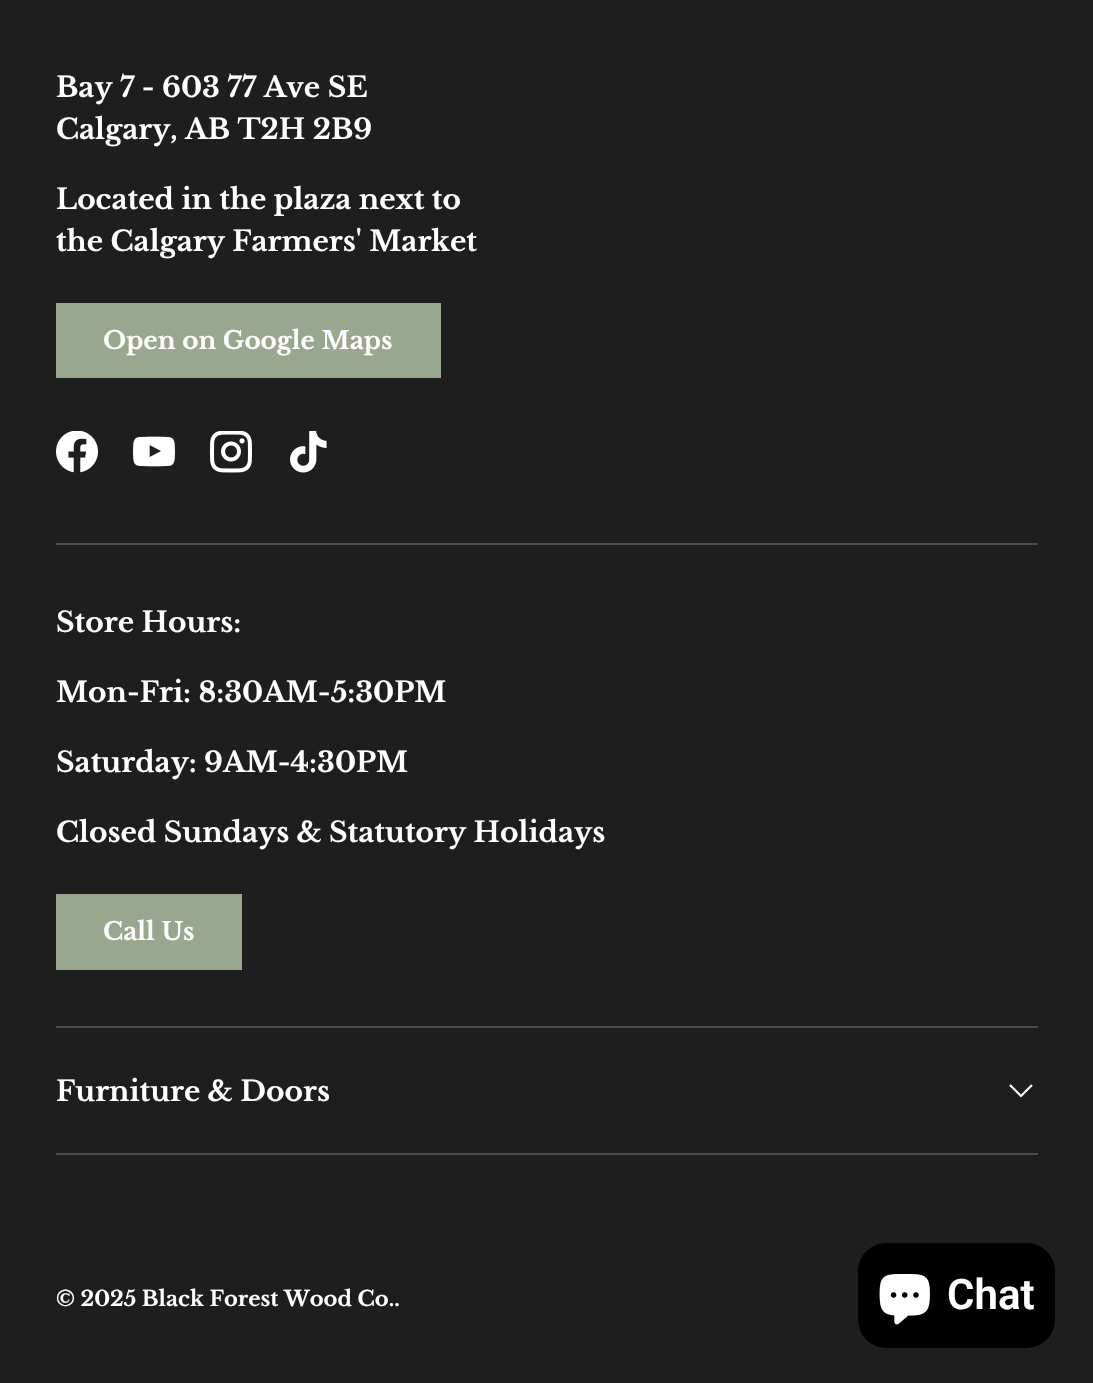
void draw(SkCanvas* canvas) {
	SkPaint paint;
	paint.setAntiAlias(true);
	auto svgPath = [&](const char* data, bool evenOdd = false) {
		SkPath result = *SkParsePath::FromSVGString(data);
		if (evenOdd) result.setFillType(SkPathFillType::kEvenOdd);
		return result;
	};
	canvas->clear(0xff1e1e1e);
	SkFont f1(fontMgr->matchFamilyStyle("Libre Baskerville", SkFontStyle::Bold()), 28);
	f1.setSubpixel(true);
	paint.setColor(0xffffffff);
	canvas->drawString("Bay 7 - 603 77 Ave SE", 56, 97, f1, paint);
	canvas->drawString("Calgary, AB T2H 2B9", 56, 139, f1, paint);
	canvas->drawString("Located in the plaza next to", 56, 209, f1, paint);
	canvas->drawString("the Calgary Farmers' Market", 56, 251, f1, paint);
	{
		const SkColor colors[] = {0xffb1bba9, 0xff9aa78f, 0xff9aa78f};
		const float stops[] = {0.6, 0.6, 1};
		const SkPoint ends[] = {{-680, 204}, {414, 477}};
		paint.setShader(SkGradientShader::MakeLinear(ends, colors, stops, 3, SkTileMode::kClamp));
		paint.setAlpha(255);
	}
	canvas->drawRect(SkRect::MakeXYWH(58, 305, 381, 71), paint);
	paint.setStroke(true);
	paint.setStrokeWidth(2);
	paint.setShader(nullptr);
	paint.setColor(0xff9aa78f);
	canvas->drawRect(SkRect::MakeXYWH(57, 304, 383, 73), paint);
	SkFont f2(fontMgr->matchFamilyStyle("Libre Baskerville", SkFontStyle::Bold()), 24.6);
	f2.setSubpixel(true);
	paint.setStroke(false);
	paint.setColor(0xffffffff);
	canvas->drawString("Open on Google Maps", 103, 349, f2, paint);
	canvas->drawImageRect(SkImages::DeferredFromEncodedData(SkData::MakeFromFileName("img1.png")), SkRect::MakeXYWH(56, 431, 42, 42), SkSamplingOptions());
	canvas->drawImageRect(SkImages::DeferredFromEncodedData(SkData::MakeFromFileName("img2.png")), SkRect::MakeXYWH(133, 436, 42, 31), SkSamplingOptions());
	canvas->drawImageRect(SkImages::DeferredFromEncodedData(SkData::MakeFromFileName("img3.png")), SkRect::MakeXYWH(210, 431, 42, 42), SkSamplingOptions());
	canvas->drawImageRect(SkImages::DeferredFromEncodedData(SkData::MakeFromFileName("img4.png")), SkRect::MakeXYWH(290, 431, 37, 42), SkSamplingOptions());
	paint.setColor(0xff4b4b4b);
	canvas->drawRect(SkRect::MakeXYWH(56, 543, 982, 2), paint);
	paint.setColor(0xffffffff);
	canvas->drawString("Store Hours:", 56, 632, f1, paint);
	canvas->drawString("Mon-Fri: 8:30AM-5:30PM", 56, 702, f1, paint);
	canvas->drawString("Saturday: 9AM-4:30PM", 56, 772, f1, paint);
	canvas->drawString("Closed Sundays & Statutory Holidays", 56, 842, f1, paint);
	{
		const SkColor colors[] = {0xffb1bba9, 0xff9aa78f, 0xff9aa78f};
		const float stops[] = {0.6, 0.6, 1};
		const SkPoint ends[] = {{-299, 866}, {232, 998}};
		paint.setShader(SkGradientShader::MakeLinear(ends, colors, stops, 3, SkTileMode::kClamp));
		paint.setAlpha(255);
	}
	canvas->drawRect(SkRect::MakeXYWH(58, 896, 182, 72), paint);
	paint.setStroke(true);
	paint.setShader(nullptr);
	paint.setColor(0xff9aa78f);
	canvas->drawRect(SkRect::MakeXYWH(57, 895, 184, 74), paint);
	paint.setStroke(false);
	paint.setColor(0xffffffff);
	canvas->drawString("Call Us", 103, 940, f2, paint);
	paint.setColor(0xff4b4b4b);
	canvas->drawRect(SkRect::MakeXYWH(56, 1026, 982, 2), paint);
	canvas->drawRect(SkRect::MakeXYWH(56, 1153, 982, 2), paint);
	paint.setColor(0xffffffff);
	canvas->drawString("Furniture & Doors", 56, 1101, f1, paint);
	paint.setStroke(true);
	paint.setStrokeWidth(2.2);
	canvas->drawPath(svgPath("M1032 1085L1021 1096L1010 1085"), paint);
	SkFont f3(fontMgr->matchFamilyStyle("Libre Baskerville", SkFontStyle::Bold()), 21);
	f3.setSubpixel(true);
	paint.setStroke(false);
	canvas->drawString("© 2025 Black Forest Wood Co..", 56, 1306, f3, paint);
	paint.setColor(0xff000000);
	canvas->drawRoundRect(SkRect::MakeXYWH(858, 1243, 197, 105), 28, 28, paint);
	canvas->drawImageRect(SkImages::DeferredFromEncodedData(SkData::MakeFromFileName("img5.png")), SkRect::MakeXYWH(879, 1274, 51, 51), SkSamplingOptions());
	SkFont f4(fontMgr->matchFamilyStyle("Roboto", SkFontStyle(600, SkFontStyle::kNormal_Width, SkFontStyle::kUpright_Slant)), 42);
	f4.setSubpixel(true);
	paint.setColor(0xffffffff);
	canvas->drawString("Chat", 947, 1309, f4, paint);
}
